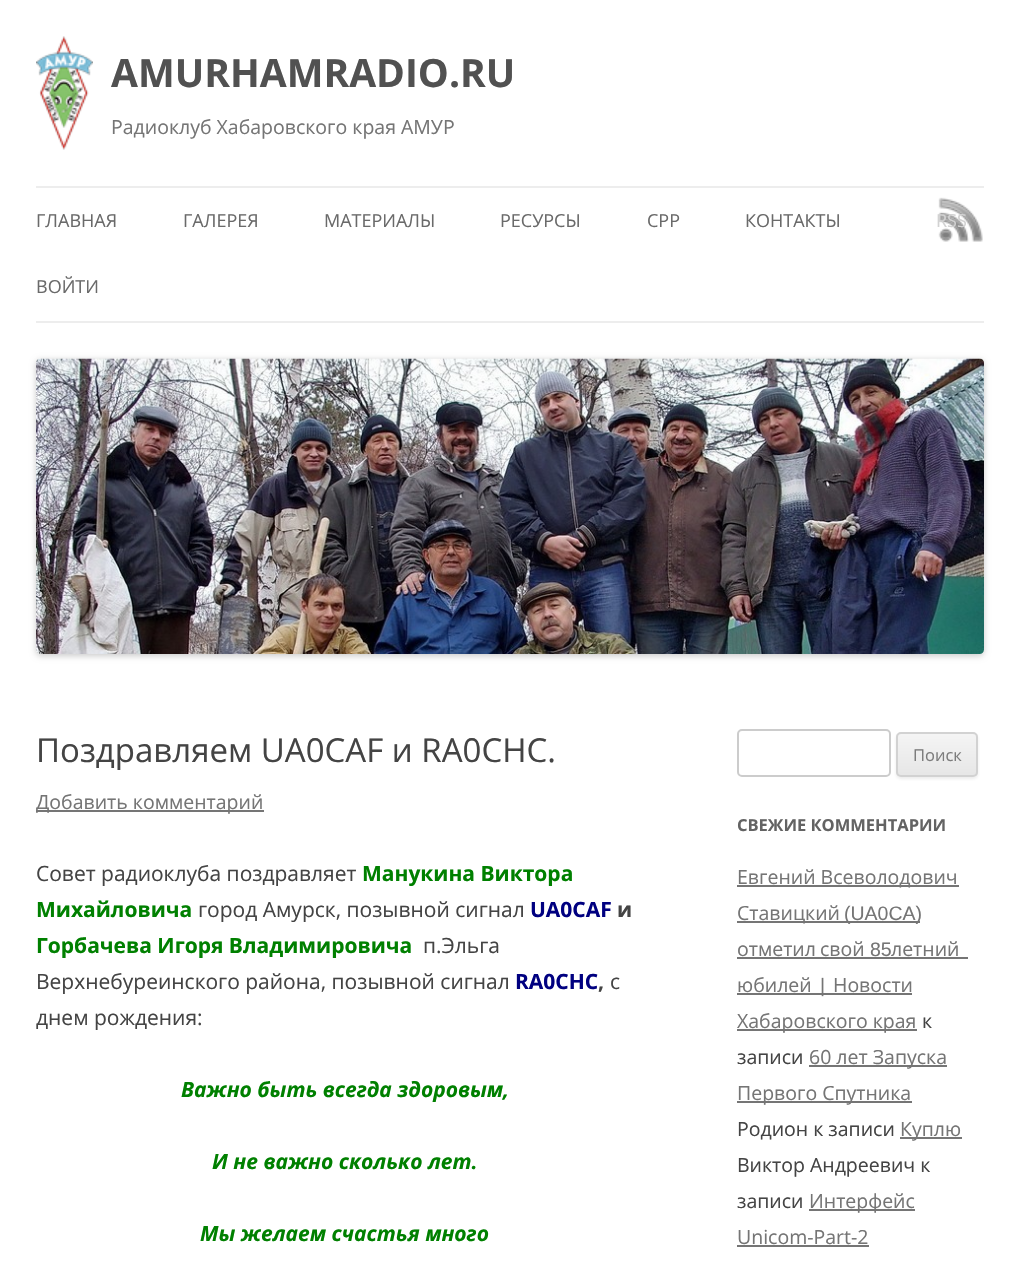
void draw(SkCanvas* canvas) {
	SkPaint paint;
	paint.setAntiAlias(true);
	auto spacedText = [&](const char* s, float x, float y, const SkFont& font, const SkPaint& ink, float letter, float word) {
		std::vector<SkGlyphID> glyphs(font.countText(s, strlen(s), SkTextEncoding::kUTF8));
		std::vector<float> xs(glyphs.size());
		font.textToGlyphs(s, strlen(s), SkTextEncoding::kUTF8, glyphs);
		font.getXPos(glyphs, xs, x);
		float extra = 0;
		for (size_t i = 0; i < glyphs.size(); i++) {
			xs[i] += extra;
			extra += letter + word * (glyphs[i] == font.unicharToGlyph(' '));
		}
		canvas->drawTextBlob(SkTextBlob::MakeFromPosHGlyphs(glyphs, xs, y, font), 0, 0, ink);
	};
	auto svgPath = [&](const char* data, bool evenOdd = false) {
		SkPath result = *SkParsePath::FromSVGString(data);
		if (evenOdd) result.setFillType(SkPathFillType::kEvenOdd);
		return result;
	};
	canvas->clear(0xffffffff);
	canvas->drawImageRect(SkImages::DeferredFromEncodedData(SkData::MakeFromFileName("img1.png")), SkRect::MakeXYWH(36, 36, 57, 114), SkSamplingOptions());
	SkFont f1(fontMgr->matchFamilyStyle("Open Sans", SkFontStyle::Bold()), 39);
	f1.setSubpixel(true);
	paint.setColor(0xff515151);
	canvas->drawString("AMURHAMRADIO.RU", 111, 87, f1, paint);
	SkFont f2(fontMgr->matchFamilyStyle("Open Sans", SkFontStyle::Normal()), 19.5);
	f2.setSubpixel(true);
	paint.setColor(0xff757575);
	canvas->drawString("Радиоклуб Хабаровского края АМУР", 111, 134, f2, paint);
	paint.setColor(0xffededed);
	canvas->drawRect(SkRect::MakeXYWH(36, 186, 948, 2), paint);
	canvas->drawRect(SkRect::MakeXYWH(36, 321, 948, 2), paint);
	SkFont f3(fontMgr->matchFamilyStyle("Open Sans", SkFontStyle::Normal()), 18);
	f3.setSubpixel(true);
	paint.setColor(0xff6a6a6a);
	canvas->drawString("ГЛАВНАЯ", 36, 227, f3, paint);
	canvas->drawString("ГАЛЕРЕЯ", 183, 227, f3, paint);
	canvas->drawString("МАТЕРИАЛЫ", 324, 227, f3, paint);
	canvas->drawString("РЕСУРСЫ", 500, 227, f3, paint);
	canvas->drawString("СРР", 647, 227, f3, paint);
	canvas->drawString("КОНТАКТЫ", 745, 227, f3, paint);
	canvas->drawImageRect(SkImages::DeferredFromEncodedData(SkData::MakeFromFileName("img2.png")), SkRect::MakeXYWH(938, 197, 45, 45), SkSamplingOptions());
	paint.setColor(0xffd2d2d2);
	canvas->drawString("RSS", 936, 227, f3, paint);
	paint.setColor(0xff6a6a6a);
	canvas->drawString("ВОЙТИ", 36, 293, f3, paint);
	paint.setColor(0x33000000);
	paint.setMaskFilter(SkMaskFilter::MakeBlur(kNormal_SkBlurStyle, 3));
	canvas->drawRoundRect(SkRect::MakeXYWH(36, 360, 948, 296), 5, 5, paint);
	paint.setMaskFilter(nullptr);
	canvas->drawImageRect(SkImages::DeferredFromEncodedData(SkData::MakeFromFileName("img3.png")), SkRect::MakeXYWH(36, 358, 948, 296), SkSamplingOptions());
	SkFont f4(fontMgr->matchFamilyStyle("Open Sans", SkFontStyle::Normal()), 33);
	f4.setSubpixel(true);
	paint.setColor(0xff444444);
	canvas->drawString("Поздравляем UA0CAF и RA0CHC.", 36, 762, f4, paint);
	paint.setColor(0xff757575);
	canvas->drawRect(SkRect::MakeXYWH(36, 810, 228, 2), paint);
	canvas->drawString("Добавить комментарий", 36, 809, f2, paint);
	SkFont f5(fontMgr->matchFamilyStyle("Open Sans", SkFontStyle::Normal()), 21);
	f5.setSubpixel(true);
	paint.setColor(0xff444444);
	canvas->drawString("Совет радиоклуба поздравляет", 36, 881, f5, paint);
	SkFont f6(fontMgr->matchFamilyStyle("Open Sans", SkFontStyle::Bold()), 21);
	f6.setSubpixel(true);
	paint.setColor(0xff008000);
	canvas->drawString("Манукина Виктора", 362, 881, f6, paint);
	canvas->drawString("Михайловича", 36, 917, f6, paint);
	paint.setColor(0xff444444);
	canvas->drawString("город Амурск, позывной сигнал", 198, 917, f5, paint);
	paint.setColor(0xff000080);
	canvas->drawString("UA0CAF", 530, 917, f6, paint);
	paint.setColor(0xff444444);
	canvas->drawString("и", 617, 917, f6, paint);
	paint.setColor(0xff008000);
	canvas->drawString("Горбачева Игоря Владимировича", 36, 953, f6, paint);
	paint.setColor(0xff444444);
	canvas->drawString("п.Эльга", 423, 953, f5, paint);
	canvas->drawString("Верхнебуреинского района, позывной сигнал", 36, 989, f5, paint);
	paint.setColor(0xff000080);
	canvas->drawString("RA0CHC", 515, 989, f6, paint);
	paint.setColor(0xff444444);
	canvas->drawString(",", 598, 989, f6, paint);
	canvas->drawString("с", 610, 989, f5, paint);
	canvas->drawString("днем рождения:", 36, 1025, f5, paint);
	SkFont f7(fontMgr->matchFamilyStyle("Open Sans", SkFontStyle::BoldItalic()), 21);
	f7.setSubpixel(true);
	paint.setColor(0xff008000);
	canvas->drawString("Важно быть всегда здоровым,", 181, 1097, f7, paint);
	canvas->drawString("И не важно сколько лет.", 212, 1169, f7, paint);
	canvas->drawString("Мы желаем счастья много", 200, 1241, f7, paint);
	paint.setStroke(true);
	paint.setStrokeWidth(2);
	paint.setColor(0xffcccccc);
	canvas->drawRoundRect(SkRect::MakeXYWH(738, 730, 152, 46), 4, 4, paint);
	paint.setStroke(false);
	paint.setColor(0x1a404040);
	paint.setMaskFilter(SkMaskFilter::MakeBlur(kNormal_SkBlurStyle, 1.5));
	canvas->drawRoundRect(SkRect::MakeXYWH(896, 734, 82, 45), 5, 5, paint);
	paint.setMaskFilter(nullptr);
	canvas->save();
	canvas->clipPath(svgPath("M901 732H973C976 732 978 734 978 737V772C978 775 976 777 973 777H901C898 777 896 775 896 772V737C896 734 898 732 901 732Z"), true);
	{
		const SkColor colors[] = {0xfff4f4f4, 0xffe6e6e6};
		const float stops[] = {0, 1};
		const SkPoint ends[] = {{937, 734}, {937, 776}};
		paint.setShader(SkGradientShader::MakeLinear(ends, colors, stops, 2, SkTileMode::kClamp));
		paint.setAlpha(255);
	}
	canvas->drawRect(SkRect::MakeXYWH(896, 734, 82, 42), paint);
	canvas->restore();
	paint.setStroke(true);
	paint.setShader(nullptr);
	paint.setColor(0xffd2d2d2);
	canvas->drawRoundRect(SkRect::MakeXYWH(897, 733, 80, 43), 4, 4, paint);
	SkFont f8(fontMgr->matchFamilyStyle("Open Sans", SkFontStyle::Normal()), 16.5);
	f8.setSubpixel(true);
	paint.setStroke(false);
	paint.setColor(0xff7c7c7c);
	canvas->drawString("Поиск", 913, 761, f8, paint);
	SkFont f9(fontMgr->matchFamilyStyle("Open Sans", SkFontStyle::Bold()), 16.5);
	f9.setSubpixel(true);
	paint.setColor(0xff636363);
	canvas->drawString("СВЕЖИЕ КОММЕНТАРИИ", 737, 831, f9, paint);
	paint.setColor(0xff757575);
	canvas->drawRect(SkRect::MakeXYWH(737, 885, 222, 2), paint);
	canvas->drawString("Евгений Всеволодович", 737, 884, f2, paint);
	canvas->drawRect(SkRect::MakeXYWH(737, 921, 183, 2), paint);
	canvas->drawString("Ставицкий", 737, 920, f2, paint);
	SkFont f10(fontMgr->matchFamilyStyle("Liberation Sans", SkFontStyle::Normal()), 19.5);
	f10.setSubpixel(true);
	canvas->drawString("(UA0CA)", 844, 920, f10, paint);
	spacedText("отметил свой", 737, 956, f2, paint, 0, -1);
	canvas->drawString("85", 870, 956, f10, paint);
	canvas->drawRect(SkRect::MakeXYWH(737, 957, 231, 2), paint);
	canvas->drawString("‑летний", 891, 956, f2, paint);
	canvas->drawString("юбилей", 737, 992, f2, paint);
	canvas->drawRect(SkRect::MakeXYWH(737, 993, 175, 2), paint);
	canvas->drawString("|", 820, 992, f10, paint);
	canvas->drawString("Новости", 833, 992, f2, paint);
	canvas->drawRect(SkRect::MakeXYWH(737, 1029, 180, 2), paint);
	canvas->drawString("Хабаровского края", 737, 1028, f2, paint);
	paint.setColor(0xff444444);
	canvas->drawString("к", 922, 1028, f2, paint);
	canvas->drawString("записи", 737, 1064, f2, paint);
	paint.setColor(0xff757575);
	canvas->drawRect(SkRect::MakeXYWH(809, 1065, 138, 2), paint);
	canvas->drawString("60 лет Запуска", 809, 1064, f2, paint);
	canvas->drawRect(SkRect::MakeXYWH(737, 1101, 175, 2), paint);
	canvas->drawString("Первого Спутника", 737, 1100, f2, paint);
	paint.setColor(0xff444444);
	canvas->drawString("Родион к записи", 737, 1136, f2, paint);
	paint.setColor(0xff757575);
	canvas->drawRect(SkRect::MakeXYWH(900, 1137, 62, 2), paint);
	canvas->drawString("Куплю", 900, 1136, f2, paint);
	paint.setColor(0xff444444);
	canvas->drawString("Виктор Андреевич к", 737, 1172, f2, paint);
	canvas->drawString("записи", 737, 1208, f2, paint);
	paint.setColor(0xff757575);
	canvas->drawRect(SkRect::MakeXYWH(809, 1209, 106, 2), paint);
	canvas->drawString("Интерфейс", 809, 1208, f2, paint);
	canvas->drawString("Unicom-Part-2", 737, 1244, f2, paint);
	canvas->drawRect(SkRect::MakeXYWH(737, 1245, 132, 2), paint);
}
